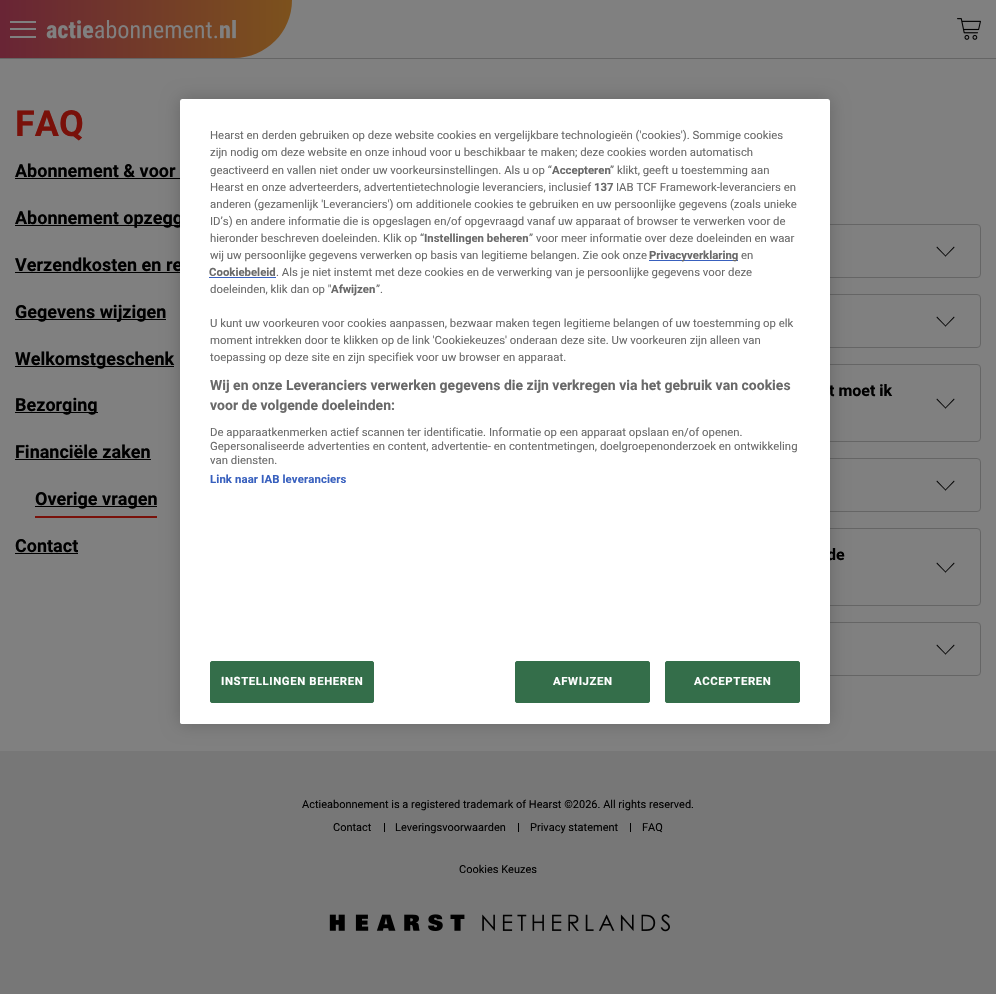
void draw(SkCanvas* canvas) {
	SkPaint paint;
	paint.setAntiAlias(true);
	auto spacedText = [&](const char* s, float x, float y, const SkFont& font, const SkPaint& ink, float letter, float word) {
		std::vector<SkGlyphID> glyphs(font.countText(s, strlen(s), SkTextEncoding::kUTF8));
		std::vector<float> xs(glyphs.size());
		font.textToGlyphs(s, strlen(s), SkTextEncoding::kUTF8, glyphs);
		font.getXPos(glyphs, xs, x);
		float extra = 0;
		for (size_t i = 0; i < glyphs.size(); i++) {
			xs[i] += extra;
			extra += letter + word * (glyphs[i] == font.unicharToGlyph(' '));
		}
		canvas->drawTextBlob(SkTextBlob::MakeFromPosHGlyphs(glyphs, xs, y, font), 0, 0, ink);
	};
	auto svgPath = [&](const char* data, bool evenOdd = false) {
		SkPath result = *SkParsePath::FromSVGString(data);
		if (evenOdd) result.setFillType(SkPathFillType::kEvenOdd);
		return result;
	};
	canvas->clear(0xff808080);
	paint.setColor(0xff656565);
	canvas->drawRect(SkRect::MakeXYWH(0, 58, 996, 1), paint);
	{
		const SkColor colors[] = {0xff692535, 0xff7c511d};
		const float stops[] = {0.01, 0.99};
		const SkPoint ends[] = {{0, 29}, {292, 29}};
		paint.setShader(SkGradientShader::MakeLinear(ends, colors, stops, 2, SkTileMode::kClamp));
		paint.setAlpha(255);
	}
	canvas->drawPath(svgPath("M0 0H292C292 32 266 58 234 58H0Z"), paint);
	{
		const SkColor colors[] = {0xff808080, 0xff808080, 0x00808080, 0x00808080, 0xff808080, 0xff808080, 0x00808080, 0x00808080, 0xff808080, 0xff808080, 0x00808080, 0x00000000};
		const float stops[] = {0, 0.08, 0.08, 0.33, 0.33, 0.42, 0.42, 0.67, 0.67, 0.75, 0.75, 1};
		const SkPoint ends[] = {{23, 38}, {23, 15}};
		paint.setShader(SkGradientShader::MakeLinear(ends, colors, stops, 12, SkTileMode::kClamp));
		paint.setAlpha(255);
	}
	canvas->drawRect(SkRect::MakeXYWH(10, 21, 26, 17), paint);
	canvas->drawImageRect(SkImages::DeferredFromEncodedData(SkData::MakeFromFileName("img1.png")), SkRect::MakeXYWH(46, 20, 190, 19), SkSamplingOptions());
	canvas->drawImageRect(SkImages::DeferredFromEncodedData(SkData::MakeFromFileName("img2.png")), SkRect::MakeXYWH(957, 18, 24, 22), SkSamplingOptions());
	SkFont f1(fontMgr->matchFamilyStyle("Roboto", SkFontStyle::Bold()), 36);
	f1.setSubpixel(true);
	paint.setShader(nullptr);
	paint.setColor(0xff79110a);
	canvas->drawString("FAQ", 15, 136, f1, paint);
	SkFont f2(fontMgr->matchFamilyStyle("Roboto", SkFontStyle::Bold()), 18);
	f2.setSubpixel(true);
	paint.setColor(0xff000000);
	canvas->drawString("Abonnement & voor", 15, 177, f2, paint);
	canvas->drawRect(SkRect::MakeXYWH(15, 178, 165, 1), paint);
	canvas->drawRect(SkRect::MakeXYWH(15, 225, 165, 1), paint);
	canvas->drawString("Abonnement opzegg", 15, 224, f2, paint);
	canvas->drawString("Verzendkosten en re", 15, 271, f2, paint);
	canvas->drawRect(SkRect::MakeXYWH(15, 272, 165, 1), paint);
	canvas->drawRect(SkRect::MakeXYWH(15, 319, 151, 1), paint);
	canvas->drawString("Gegevens wijzigen", 15, 318, f2, paint);
	canvas->drawRect(SkRect::MakeXYWH(15, 366, 159, 1), paint);
	canvas->drawString("Welkomstgeschenk", 15, 365, f2, paint);
	canvas->drawRect(SkRect::MakeXYWH(15, 412, 83, 1), paint);
	canvas->drawString("Bezorging", 15, 411, f2, paint);
	canvas->drawString("Financiële zaken", 15, 458, f2, paint);
	canvas->drawRect(SkRect::MakeXYWH(15, 459, 136, 1), paint);
	canvas->drawRect(SkRect::MakeXYWH(35, 506, 122, 1), paint);
	canvas->drawString("Overige vragen", 35, 505, f2, paint);
	paint.setColor(0xff79110a);
	canvas->drawRect(SkRect::MakeXYWH(35, 516, 122, 2), paint);
	paint.setColor(0xff000000);
	canvas->drawString("Contact", 15, 552, f2, paint);
	canvas->drawRect(SkRect::MakeXYWH(15, 553, 63, 1), paint);
	paint.setStroke(true);
	paint.setStrokeWidth(1);
	paint.setColor(0xff656565);
	canvas->drawRoundRect(SkRect::MakeXYWH(347.5, 224.5, 633, 53), 3.5, 3.5, paint);
	paint.setStroke(false);
	paint.setColor(0xff000000);
	canvas->drawPath(svgPath("M954 246.5L954.5 247.5L945.5 256.5L945 256Z"), paint);
	canvas->drawPath(svgPath("M937 246.5L946 256L945.5 256.5L936.5 247.5Z"), paint);
	paint.setStroke(true);
	paint.setColor(0xff656565);
	canvas->drawRoundRect(SkRect::MakeXYWH(347.5, 294.5, 633, 53), 3.5, 3.5, paint);
	paint.setStroke(false);
	paint.setColor(0xff000000);
	canvas->drawPath(svgPath("M954 316.5L954.5 317.5L945.5 326.5L945 326Z"), paint);
	canvas->drawPath(svgPath("M937 316.5L946 326L945.5 326.5L936.5 317.5Z"), paint);
	paint.setStroke(true);
	paint.setColor(0xff656565);
	canvas->drawRoundRect(SkRect::MakeXYWH(347.5, 364.5, 633, 77), 3.5, 3.5, paint);
	SkFont f3(fontMgr->matchFamilyStyle("Roboto", SkFontStyle::Bold()), 16);
	f3.setSubpixel(true);
	paint.setStroke(false);
	paint.setColor(0xff000000);
	canvas->drawString("t moet ik", 829, 396, f3, paint);
	canvas->drawPath(svgPath("M954 398.5L954.5 399.5L945.5 408.5L945 408Z"), paint);
	canvas->drawPath(svgPath("M937 398.5L946 408L945.5 408.5L936.5 399.5Z"), paint);
	paint.setStroke(true);
	paint.setColor(0xff656565);
	canvas->drawRoundRect(SkRect::MakeXYWH(347.5, 458.5, 633, 53), 3.5, 3.5, paint);
	paint.setStroke(false);
	paint.setColor(0xff000000);
	canvas->drawPath(svgPath("M954 480.5L954.5 481.5L945.5 490.5L945 490Z"), paint);
	canvas->drawPath(svgPath("M937 480.5L946 490L945.5 490.5L936.5 481.5Z"), paint);
	paint.setStroke(true);
	paint.setColor(0xff656565);
	canvas->drawRoundRect(SkRect::MakeXYWH(347.5, 528.5, 633, 77), 3.5, 3.5, paint);
	paint.setStroke(false);
	paint.setColor(0xff000000);
	canvas->drawString("de", 827, 560, f3, paint);
	canvas->drawPath(svgPath("M954 562.5L954.5 563.5L945.5 572.5L945 572Z"), paint);
	canvas->drawPath(svgPath("M937 562.5L946 572L945.5 572.5L936.5 563.5Z"), paint);
	paint.setStroke(true);
	paint.setColor(0xff656565);
	canvas->drawRoundRect(SkRect::MakeXYWH(347.5, 622.5, 633, 53), 3.5, 3.5, paint);
	paint.setStroke(false);
	paint.setColor(0xff000000);
	canvas->drawPath(svgPath("M954 644.5L954.5 645.5L945.5 654.5L945 654Z"), paint);
	canvas->drawPath(svgPath("M937 644.5L946 654L945.5 654.5L936.5 645.5Z"), paint);
	paint.setColor(0xff777777);
	canvas->drawRect(SkRect::MakeXYWH(0, 751, 996, 243), paint);
	SkFont f4(fontMgr->matchFamilyStyle("Roboto", SkFontStyle::Normal()), 11);
	f4.setSubpixel(true);
	paint.setColor(0xff000000);
	canvas->drawString("Actieabonnement is a registered trademark of Hearst ©2026. All rights reserved.", 302, 808, f4, paint);
	canvas->drawString("Contact", 333, 831, f4, paint);
	canvas->drawRect(SkRect::MakeXYWH(384, 823, 1, 9), paint);
	canvas->drawString("Leveringsvoorwaarden", 395, 831, f4, paint);
	canvas->drawRect(SkRect::MakeXYWH(518, 823, 1, 9), paint);
	canvas->drawString("Privacy statement", 530, 831, f4, paint);
	canvas->drawRect(SkRect::MakeXYWH(630, 823, 1, 9), paint);
	canvas->drawString("FAQ", 642, 831, f4, paint);
	canvas->drawString("Cookies Keuzes", 459, 873, f4, paint);
	canvas->drawImageRect(SkImages::DeferredFromEncodedData(SkData::MakeFromFileName("img3.png")), SkRect::MakeXYWH(329, 914, 341, 18), SkSamplingOptions());
	paint.setColor(0x33000000);
	paint.setMaskFilter(SkMaskFilter::MakeBlur(kNormal_SkBlurStyle, 9));
	canvas->drawRoundRect(SkRect::MakeXYWH(180, 99, 650, 625), 2.5, 2.5, paint);
	paint.setMaskFilter(nullptr);
	paint.setColor(0xffffffff);
	canvas->drawRoundRect(SkRect::MakeXYWH(180, 99, 650, 625), 2.5, 2.5, paint);
	SkFont f5(fontMgr->matchFamilyStyle("Roboto", SkFontStyle::Normal()), 11.38);
	f5.setSubpixel(true);
	paint.setColor(0xff696969);
	canvas->drawString("Hearst en derden gebruiken op deze website cookies en vergelijkbare technologieën ('cookies'). Sommige cookies", 210, 139, f5, paint);
	canvas->drawString("zijn nodig om deze website en onze inhoud voor u beschikbaar te maken; deze cookies worden automatisch", 210, 156, f5, paint);
	canvas->drawString("geactiveerd en vallen niet onder uw voorkeursinstellingen. Als u op “", 210, 174, f5, paint);
	SkFont f6(fontMgr->matchFamilyStyle("Roboto", SkFontStyle::Bold()), 11.38);
	f6.setSubpixel(true);
	canvas->drawString("Accepteren", 552, 174, f6, paint);
	canvas->drawString("” klikt, geeft u toestemming aan", 610, 174, f5, paint);
	canvas->drawString("Hearst en onze adverteerders, advertentietechnologie leveranciers, inclusief", 210, 191, f5, paint);
	canvas->drawString("137", 594, 191, f6, paint);
	canvas->drawString("IAB TCF Framework-leveranciers en", 616, 191, f5, paint);
	canvas->drawString("anderen (gezamenlijk 'Leveranciers') om additionele cookies te gebruiken en uw persoonlijke gegevens (zoals unieke", 210, 208, f5, paint);
	canvas->drawString("ID’s) en andere informatie die is opgeslagen en/of opgevraagd vanaf uw apparaat of browser te verwerken voor de", 210, 225, f5, paint);
	canvas->drawString("hieronder beschreven doeleinden. Klik op “", 210, 242, f5, paint);
	canvas->drawString("Instellingen beheren", 424, 242, f6, paint);
	canvas->drawString("” voor meer informatie over deze doeleinden en waar", 529, 242, f5, paint);
	canvas->drawString("wij uw persoonlijke gegevens verwerken op basis van legitieme belangen. Zie ook onze", 210, 259, f5, paint);
	paint.setColor(0xff3860be);
	canvas->drawRect(SkRect::MakeXYWH(649, 260, 89, 1), paint);
	paint.setColor(0xff696969);
	canvas->drawString("Privacyverklaring", 649, 259, f6, paint);
	canvas->drawString("en", 741, 259, f5, paint);
	canvas->drawString("Cookiebeleid", 209, 276, f6, paint);
	paint.setColor(0xff3860be);
	canvas->drawRect(SkRect::MakeXYWH(209, 277, 67, 1), paint);
	paint.setColor(0xff696969);
	canvas->drawString(". Als je niet instemt met deze cookies en de verwerking van je persoonlijke gegevens voor deze", 276, 276, f5, paint);
	canvas->drawString("doeleinden, klik dan op \"", 210, 293, f5, paint);
	canvas->drawString("Afwijzen", 331, 293, f6, paint);
	canvas->drawString("”.", 376, 293, f5, paint);
	canvas->drawString("U kunt uw voorkeuren voor cookies aanpassen, bezwaar maken tegen legitieme belangen of uw toestemming op elk", 210, 327, f5, paint);
	canvas->drawString("moment intrekken door te klikken op de link 'Cookiekeuzes' onderaan deze site. Uw voorkeuren zijn alleen van", 210, 344, f5, paint);
	canvas->drawString("toepassing op deze site en zijn specifiek voor uw browser en apparaat.", 210, 361, f5, paint);
	SkFont f7(fontMgr->matchFamilyStyle("Roboto", SkFontStyle::Bold()), 14);
	f7.setSubpixel(true);
	canvas->drawString("Wij en onze Leveranciers verwerken gegevens die zijn verkregen via het gebruik van cookies", 210, 390, f7, paint);
	canvas->drawString("voor de volgende doeleinden:", 210, 410, f7, paint);
	canvas->drawString("De apparaatkenmerken actief scannen ter identificatie. Informatie op een apparaat opslaan en/of openen.", 210, 436, f5, paint);
	canvas->drawString("Gepersonaliseerde advertenties en content, advertentie- en contentmetingen, doelgroepenonderzoek en ontwikkeling", 210, 450, f5, paint);
	canvas->drawString("van diensten.", 210, 464, f5, paint);
	paint.setColor(0xff3860be);
	spacedText("Link naar IAB leveranciers", 210, 483, f6, paint, 0.1, 0);
	paint.setColor(0xffffffff);
	canvas->drawPath(svgPath("M180 643H830V721.5C830 723 829 724 827.5 724H182.5C181 724 180 723 180 721.5Z"), paint);
	paint.setColor(0xff346e4a);
	canvas->drawRoundRect(SkRect::MakeXYWH(210.5, 661.5, 163, 41), 1.5, 1.5, paint);
	paint.setStroke(true);
	canvas->drawRoundRect(SkRect::MakeXYWH(210.5, 661.5, 163, 41), 1.5, 1.5, paint);
	paint.setStroke(false);
	paint.setColor(0xffffffff);
	spacedText("INSTELLINGEN BEHEREN", 221, 685, f6, paint, 0.6, 0);
	paint.setColor(0xff346e4a);
	canvas->drawRoundRect(SkRect::MakeXYWH(515.5, 661.5, 134, 41), 1.5, 1.5, paint);
	paint.setStroke(true);
	canvas->drawRoundRect(SkRect::MakeXYWH(515.5, 661.5, 134, 41), 1.5, 1.5, paint);
	paint.setStroke(false);
	paint.setColor(0xffffffff);
	spacedText("AFWIJZEN", 553, 685, f6, paint, 0.6, 0);
	paint.setColor(0xff346e4a);
	canvas->drawRoundRect(SkRect::MakeXYWH(665.5, 661.5, 134, 41), 1.5, 1.5, paint);
	paint.setStroke(true);
	canvas->drawRoundRect(SkRect::MakeXYWH(665.5, 661.5, 134, 41), 1.5, 1.5, paint);
	paint.setStroke(false);
	paint.setColor(0xffffffff);
	spacedText("ACCEPTEREN", 694, 685, f6, paint, 0.6, 0);
}
